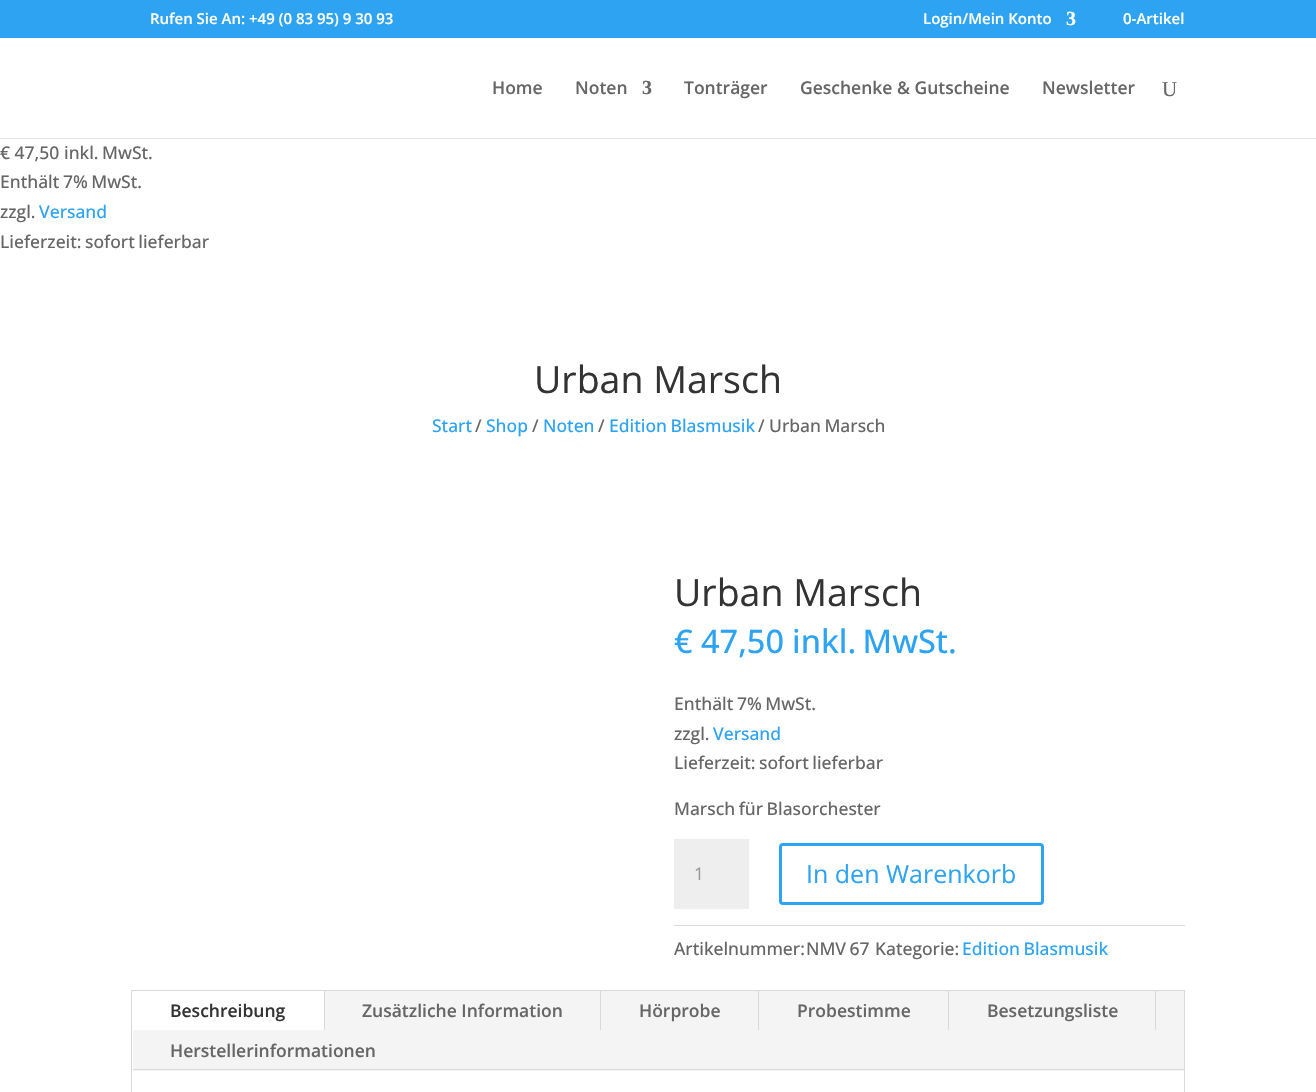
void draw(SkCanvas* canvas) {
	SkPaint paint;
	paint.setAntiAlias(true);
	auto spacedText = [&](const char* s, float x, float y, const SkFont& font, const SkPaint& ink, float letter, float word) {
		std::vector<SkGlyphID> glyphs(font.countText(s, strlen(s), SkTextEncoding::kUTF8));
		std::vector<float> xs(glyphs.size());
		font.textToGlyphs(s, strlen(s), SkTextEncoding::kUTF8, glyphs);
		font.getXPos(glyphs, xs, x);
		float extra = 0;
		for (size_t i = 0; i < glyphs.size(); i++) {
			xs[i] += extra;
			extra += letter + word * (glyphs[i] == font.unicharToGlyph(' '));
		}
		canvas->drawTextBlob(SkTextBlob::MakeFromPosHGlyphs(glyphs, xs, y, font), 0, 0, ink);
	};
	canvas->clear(0xffffffff);
	paint.setColor(0xff2ea3f2);
	canvas->drawRect(SkRect::MakeXYWH(0, 0, 1316, 38), paint);
	SkFont f1(fontMgr->matchFamilyStyle("Open Sans", SkFontStyle(600, SkFontStyle::kNormal_Width, SkFontStyle::kUpright_Slant)), 15);
	f1.setSubpixel(true);
	paint.setColor(0xffffffff);
	canvas->drawString("Rufen Sie An: +49 (0 83 95) 9 30 93", 150, 24, f1, paint);
	canvas->drawString("Login/Mein Konto", 923, 24, f1, paint);
	SkFont f2(fontMgr->matchFamilyStyle("Liberation Serif", SkFontStyle::Bold()), 20);
	f2.setSubpixel(true);
	canvas->drawString("3", 1066, 25, f2, paint);
	canvas->drawString("0-Artikel", 1123, 24, f1, paint);
	paint.setColor(0xffe6e6e6);
	canvas->drawRect(SkRect::MakeXYWH(0, 138, 1316, 1), paint);
	SkFont f3(fontMgr->matchFamilyStyle("Open Sans", SkFontStyle(600, SkFontStyle::kNormal_Width, SkFontStyle::kUpright_Slant)), 17.5);
	f3.setSubpixel(true);
	paint.setColor(0xff666666);
	canvas->drawString("Home", 492, 94, f3, paint);
	canvas->drawString("Noten", 575, 94, f3, paint);
	canvas->drawString("3", 642, 94, f2, paint);
	canvas->drawString("Tonträger", 684, 94, f3, paint);
	canvas->drawString("Geschenke & Gutscheine", 800, 94, f3, paint);
	canvas->drawString("Newsletter", 1042, 94, f3, paint);
	SkFont f4(fontMgr->matchFamilyStyle("Liberation Serif", SkFontStyle::Normal()), 21);
	f4.setSubpixel(true);
	canvas->drawString("U", 1162, 96, f4, paint);
	SkFont f5(fontMgr->matchFamilyStyle("Open Sans", SkFontStyle(500, SkFontStyle::kNormal_Width, SkFontStyle::kUpright_Slant)), 17.5);
	f5.setSubpixel(true);
	canvas->drawString("€ 47,50", 0, 159, f5, paint);
	spacedText("inkl. MwSt.", 64, 159, f5, paint, 0, -1);
	spacedText("Enthält 7% MwSt.", 0, 188, f5, paint, 0, -1);
	canvas->drawString("zzgl.", 0, 218, f5, paint);
	paint.setColor(0xff2ea3f2);
	canvas->drawString("Versand", 39, 218, f5, paint);
	paint.setColor(0xff666666);
	spacedText("Lieferzeit: sofort lieferbar", 0, 248, f5, paint, 0, -1);
	SkFont f6(fontMgr->matchFamilyStyle("Open Sans", SkFontStyle::Normal()), 37.5);
	f6.setSubpixel(true);
	paint.setColor(0xff333333);
	canvas->drawString("Urban Marsch", 534, 393, f6, paint);
	paint.setColor(0xff2ea3f2);
	canvas->drawString("Start", 432, 432, f5, paint);
	paint.setColor(0xff666666);
	canvas->drawString("/", 475, 432, f5, paint);
	paint.setColor(0xff2ea3f2);
	canvas->drawString("Shop", 486, 432, f5, paint);
	paint.setColor(0xff666666);
	canvas->drawString("/", 532, 432, f5, paint);
	paint.setColor(0xff2ea3f2);
	canvas->drawString("Noten", 543, 432, f5, paint);
	paint.setColor(0xff666666);
	canvas->drawString("/", 598, 432, f5, paint);
	paint.setColor(0xff2ea3f2);
	spacedText("Edition Blasmusik", 609, 432, f5, paint, 0, -1);
	paint.setColor(0xff666666);
	canvas->drawString("/", 758, 432, f5, paint);
	spacedText("Urban Marsch", 769, 432, f5, paint, 0, -1);
	paint.setColor(0xff333333);
	canvas->drawString("Urban Marsch", 674, 606, f6, paint);
	SkFont f7(fontMgr->matchFamilyStyle("Open Sans", SkFontStyle(500, SkFontStyle::kNormal_Width, SkFontStyle::kUpright_Slant)), 32.5);
	f7.setSubpixel(true);
	paint.setColor(0xff2ea3f2);
	canvas->drawString("€ 47,50", 674, 653, f7, paint);
	spacedText("inkl. MwSt.", 792, 653, f7, paint, 0, -2);
	paint.setColor(0xff666666);
	spacedText("Enthält 7% MwSt.", 674, 710, f5, paint, 0, -1);
	canvas->drawString("zzgl.", 674, 740, f5, paint);
	paint.setColor(0xff2ea3f2);
	canvas->drawString("Versand", 713, 740, f5, paint);
	paint.setColor(0xff666666);
	spacedText("Lieferzeit: sofort lieferbar", 674, 769, f5, paint, 0, -1);
	spacedText("Marsch für Blasorchester", 674, 815, f5, paint, 0, -1);
	paint.setColor(0xffeeeeee);
	canvas->drawRect(SkRect::MakeXYWH(674, 839, 75, 70), paint);
	SkFont f8(fontMgr->matchFamilyStyle("Open Sans", SkFontStyle::Normal()), 17.5);
	f8.setSubpixel(true);
	paint.setColor(0xff999999);
	canvas->drawString("1", 694, 880, f8, paint);
	paint.setStroke(true);
	paint.setStrokeWidth(3);
	paint.setColor(0xff2ea3f2);
	canvas->drawRoundRect(SkRect::MakeXYWH(780.5, 844.5, 262, 59), 2.5, 2.5, paint);
	SkFont f9(fontMgr->matchFamilyStyle("Open Sans", SkFontStyle::Normal()), 25);
	f9.setSubpixel(true);
	paint.setStroke(false);
	canvas->drawString("In den Warenkorb", 806, 883, f9, paint);
	paint.setColor(0xffdadada);
	canvas->drawRect(SkRect::MakeXYWH(674, 925, 511, 1), paint);
	paint.setColor(0xff666666);
	canvas->drawString("Artikelnummer:", 674, 955, f5, paint);
	spacedText("NMV 67", 806, 955, f5, paint, 0, -1);
	canvas->drawString("Kategorie:", 875, 955, f5, paint);
	paint.setColor(0xff2ea3f2);
	spacedText("Edition Blasmusik", 962, 955, f5, paint, 0, -1);
	paint.setStroke(true);
	paint.setStrokeWidth(1);
	paint.setColor(0xffd9d9d9);
	canvas->drawRect(SkRect::MakeXYWH(131.5, 990.5, 1053, 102), paint);
	paint.setStroke(false);
	paint.setColor(0xfff4f4f4);
	canvas->drawRect(SkRect::MakeXYWH(133, 991, 1051, 80), paint);
	paint.setColor(0xffffffff);
	canvas->drawRect(SkRect::MakeXYWH(133, 991, 191, 39), paint);
	paint.setColor(0xffd9d9d9);
	canvas->drawRect(SkRect::MakeXYWH(324, 991, 1, 39), paint);
	paint.setColor(0xff333333);
	canvas->drawString("Beschreibung", 170, 1017, f3, paint);
	paint.setColor(0xffd9d9d9);
	canvas->drawRect(SkRect::MakeXYWH(600, 991, 1, 39), paint);
	paint.setColor(0xff666666);
	canvas->drawString("Zusätzliche Information", 362, 1017, f3, paint);
	paint.setColor(0xffd9d9d9);
	canvas->drawRect(SkRect::MakeXYWH(758, 991, 1, 39), paint);
	paint.setColor(0xff666666);
	canvas->drawString("Hörprobe", 639, 1017, f3, paint);
	paint.setColor(0xffd9d9d9);
	canvas->drawRect(SkRect::MakeXYWH(948, 991, 1, 39), paint);
	paint.setColor(0xff666666);
	canvas->drawString("Probestimme", 797, 1017, f3, paint);
	paint.setColor(0xffd9d9d9);
	canvas->drawRect(SkRect::MakeXYWH(1155, 991, 1, 39), paint);
	paint.setColor(0xff666666);
	canvas->drawString("Besetzungsliste", 987, 1017, f3, paint);
	canvas->drawString("Herstellerinformationen", 170, 1057, f3, paint);
	paint.setColor(0xffd9d9d9);
	canvas->drawRect(SkRect::MakeXYWH(133, 1069, 1051, 1), paint);
}
